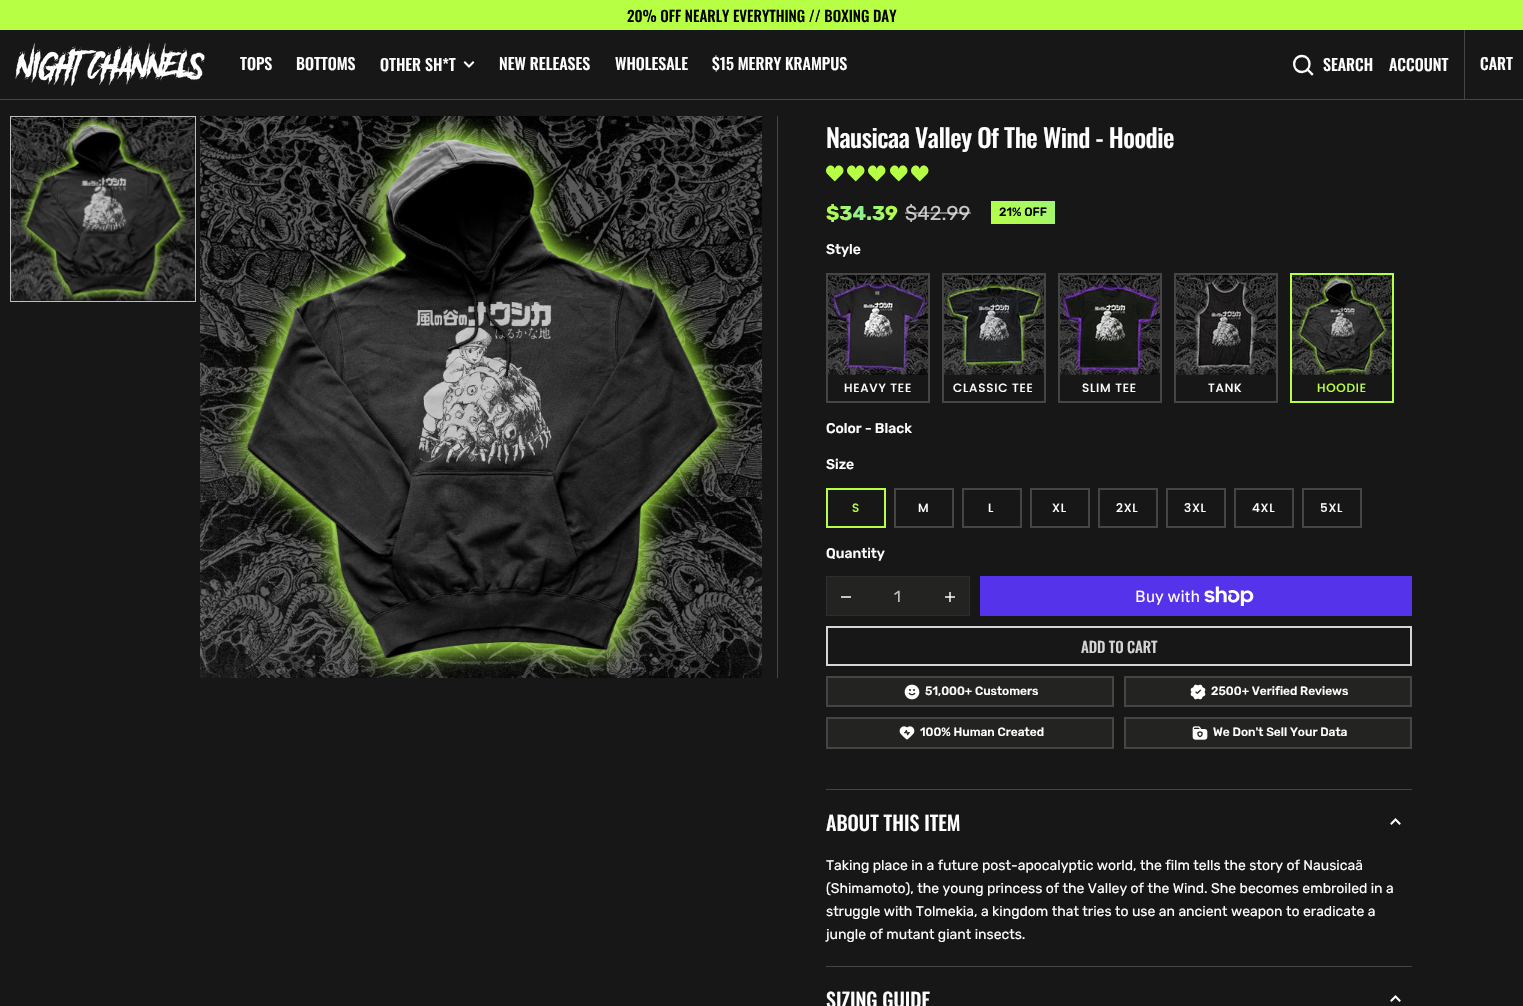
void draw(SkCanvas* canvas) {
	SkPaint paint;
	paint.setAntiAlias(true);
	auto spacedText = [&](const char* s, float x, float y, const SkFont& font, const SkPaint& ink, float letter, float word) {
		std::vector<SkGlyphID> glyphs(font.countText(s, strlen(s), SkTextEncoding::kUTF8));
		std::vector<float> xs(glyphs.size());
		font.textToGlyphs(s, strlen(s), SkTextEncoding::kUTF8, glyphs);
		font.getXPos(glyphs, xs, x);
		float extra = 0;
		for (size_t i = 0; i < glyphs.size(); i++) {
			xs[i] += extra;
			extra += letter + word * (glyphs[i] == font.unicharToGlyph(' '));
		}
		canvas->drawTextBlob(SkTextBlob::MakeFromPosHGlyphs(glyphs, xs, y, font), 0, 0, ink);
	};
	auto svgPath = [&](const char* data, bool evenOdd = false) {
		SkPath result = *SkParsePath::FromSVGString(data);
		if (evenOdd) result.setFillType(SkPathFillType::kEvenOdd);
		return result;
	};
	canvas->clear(0xff171717);
	paint.setColor(0xffb7ff45);
	canvas->drawRect(SkRect::MakeXYWH(0, 0, 1523, 30), paint);
	SkFont f1(fontMgr->matchFamilyStyle("Oswald", SkFontStyle(500, SkFontStyle::kNormal_Width, SkFontStyle::kUpright_Slant)), 15);
	f1.setSubpixel(true);
	paint.setColor(0xff000000);
	canvas->drawString("20% OFF NEARLY EVERYTHING // BOXING DAY", 627, 22, f1, paint);
	paint.setColor(0xff454544);
	canvas->drawRect(SkRect::MakeXYWH(0, 99, 1523, 1), paint);
	canvas->drawImageRect(SkImages::DeferredFromEncodedData(SkData::MakeFromFileName("img1.png")), SkRect::MakeXYWH(15, 43, 190, 44), SkSamplingOptions());
	SkFont f2(fontMgr->matchFamilyStyle("Oswald", SkFontStyle(500, SkFontStyle::kNormal_Width, SkFontStyle::kUpright_Slant)), 16);
	f2.setSubpixel(true);
	paint.setColor(0xffffffff);
	canvas->drawString("TOPS", 240, 70, f2, paint);
	canvas->drawString("BOTTOMS", 296, 70, f2, paint);
	canvas->drawString("OTHER SH*T", 380, 71, f2, paint);
	paint.setStroke(true);
	paint.setStrokeWidth(2);
	paint.setStrokeCap(SkPaint::kSquare_Cap);
	canvas->drawPath(svgPath("M473 62.5L469 66.5L465 62.5"), paint);
	paint.setStroke(false);
	canvas->drawString("NEW RELEASES", 499, 70, f2, paint);
	canvas->drawString("WHOLESALE", 615, 70, f2, paint);
	canvas->drawString("$15 MERRY KRAMPUS", 712, 70, f2, paint);
	paint.setStroke(true);
	paint.setStrokeWidth(2.3);
	paint.setStrokeCap(SkPaint::kRound_Cap);
	paint.setStrokeJoin(SkPaint::kRound_Join);
	canvas->drawPath(svgPath("M1302 72C1312 72 1312 56 1302 56C1291.5 56 1291.5 72 1302 72Z"), paint);
	paint.setStrokeCap(SkPaint::kSquare_Cap);
	canvas->drawPath(svgPath("M1307.5 69.5L1312 74"), paint);
	paint.setStroke(false);
	canvas->drawString("SEARCH", 1323, 71, f2, paint);
	canvas->drawString("ACCOUNT", 1389, 71, f2, paint);
	paint.setColor(0xff454544);
	canvas->drawRect(SkRect::MakeXYWH(1464, 30, 1, 70), paint);
	paint.setColor(0xffffffff);
	canvas->drawString("CART", 1480, 70, f2, paint);
	paint.setStroke(true);
	paint.setStrokeWidth(1);
	paint.setStrokeCap(SkPaint::kButt_Cap);
	paint.setStrokeJoin(SkPaint::kMiter_Join);
	paint.setColor(0xffbfbfbf);
	canvas->drawRect(SkRect::MakeXYWH(10.5, 116.5, 185, 185), paint);
	canvas->drawImageRect(SkImages::DeferredFromEncodedData(SkData::MakeFromFileName("img2.png")), SkRect::MakeXYWH(11, 117, 184, 184), SkSamplingOptions());
	canvas->drawImageRect(SkImages::DeferredFromEncodedData(SkData::MakeFromFileName("img3.png")), SkRect::MakeXYWH(200, 116, 562, 562), SkSamplingOptions());
	paint.setStroke(false);
	paint.setColor(0xff454544);
	canvas->drawRect(SkRect::MakeXYWH(777, 116, 1, 562), paint);
	SkFont f3(fontMgr->matchFamilyStyle("Oswald", SkFontStyle(500, SkFontStyle::kNormal_Width, SkFontStyle::kUpright_Slant)), 25.6);
	f3.setSubpixel(true);
	paint.setColor(0xffffffff);
	spacedText("Nausicaa Valley Of The Wind - Hoodie", 826, 148, f3, paint, -0.5, 0);
	canvas->drawImageRect(SkImages::DeferredFromEncodedData(SkData::MakeFromFileName("img4.png")), SkRect::MakeXYWH(826, 165, 18, 17), SkSamplingOptions());
	canvas->drawImageRect(SkImages::DeferredFromEncodedData(SkData::MakeFromFileName("img4.png")), SkRect::MakeXYWH(847, 165, 18, 17), SkSamplingOptions());
	canvas->drawImageRect(SkImages::DeferredFromEncodedData(SkData::MakeFromFileName("img4.png")), SkRect::MakeXYWH(868, 165, 18, 17), SkSamplingOptions());
	canvas->drawImageRect(SkImages::DeferredFromEncodedData(SkData::MakeFromFileName("img4.png")), SkRect::MakeXYWH(890, 165, 18, 17), SkSamplingOptions());
	canvas->drawImageRect(SkImages::DeferredFromEncodedData(SkData::MakeFromFileName("img4.png")), SkRect::MakeXYWH(911, 165, 18, 17), SkSamplingOptions());
	SkFont f4(fontMgr->matchFamilyStyle("Rubik", SkFontStyle::Bold()), 20);
	f4.setSubpixel(true);
	{
		const SkColor colors[] = {0xffb7ff45, 0xff90ee90, 0xffb7ff45};
		const float stops[] = {0, 0.5, 1};
		const SkPoint ends[] = {{826, 213}, {897, 213}};
		paint.setShader(SkGradientShader::MakeLinear(ends, colors, stops, 3, SkTileMode::kClamp));
		paint.setAlpha(255);
	}
	canvas->drawString("$34.39", 826, 220, f4, paint);
	SkFont f5(fontMgr->matchFamilyStyle("Rubik", SkFontStyle::Normal()), 20);
	f5.setSubpixel(true);
	paint.setShader(nullptr);
	paint.setColor(0xffc5c5c5);
	canvas->drawString("$42.99", 905, 220, f5, paint);
	paint.setColor(0x66ffffff);
	canvas->drawRect(SkRect::MakeXYWH(905, 212, 66, 2), paint);
	{
		const SkColor colors[] = {0xffb7ff45, 0xff90ee90, 0xffb7ff45};
		const float stops[] = {0, 0.5, 1};
		const SkPoint ends[] = {{1049, 282}, {1189, 143}};
		paint.setShader(SkGradientShader::MakeLinear(ends, colors, stops, 3, SkTileMode::kClamp));
		paint.setAlpha(255);
	}
	canvas->drawRect(SkRect::MakeXYWH(991, 201, 64, 23), paint);
	SkFont f6(fontMgr->matchFamilyStyle("Rubik", SkFontStyle(500, SkFontStyle::kNormal_Width, SkFontStyle::kUpright_Slant)), 12);
	f6.setSubpixel(true);
	paint.setShader(nullptr);
	paint.setColor(0xff000000);
	canvas->drawString("21% OFF", 999, 216, f6, paint);
	SkFont f7(fontMgr->matchFamilyStyle("Rubik", SkFontStyle(500, SkFontStyle::kNormal_Width, SkFontStyle::kUpright_Slant)), 14);
	f7.setSubpixel(true);
	paint.setColor(0xffffffff);
	canvas->drawString("Style", 826, 254, f7, paint);
	paint.setStroke(true);
	paint.setStrokeWidth(2);
	paint.setColor(0xff454544);
	canvas->drawRect(SkRect::MakeXYWH(827, 274, 102, 128), paint);
	canvas->drawImageRect(SkImages::DeferredFromEncodedData(SkData::MakeFromFileName("img5.png")), SkRect::MakeXYWH(828, 275, 100, 100), SkSamplingOptions());
	SkFont f8(fontMgr->matchFamilyStyle("Poppins", SkFontStyle(500, SkFontStyle::kNormal_Width, SkFontStyle::kUpright_Slant)), 12);
	f8.setSubpixel(true);
	paint.setStroke(false);
	paint.setColor(0xffffffff);
	spacedText("HEAVY TEE", 844, 392, f8, paint, 0.75, 0);
	paint.setStroke(true);
	paint.setColor(0xff454544);
	canvas->drawRect(SkRect::MakeXYWH(943, 274, 102, 128), paint);
	canvas->drawImageRect(SkImages::DeferredFromEncodedData(SkData::MakeFromFileName("img6.png")), SkRect::MakeXYWH(944, 275, 100, 100), SkSamplingOptions());
	paint.setStroke(false);
	paint.setColor(0xffffffff);
	spacedText("CLASSIC TEE", 953, 392, f8, paint, 0.75, 0);
	paint.setStroke(true);
	paint.setColor(0xff454544);
	canvas->drawRect(SkRect::MakeXYWH(1059, 274, 102, 128), paint);
	canvas->drawImageRect(SkImages::DeferredFromEncodedData(SkData::MakeFromFileName("img7.png")), SkRect::MakeXYWH(1060, 275, 100, 100), SkSamplingOptions());
	paint.setStroke(false);
	paint.setColor(0xffffffff);
	spacedText("SLIM TEE", 1082, 392, f8, paint, 0.75, 0);
	paint.setStroke(true);
	paint.setColor(0xff454544);
	canvas->drawRect(SkRect::MakeXYWH(1175, 274, 102, 128), paint);
	canvas->drawImageRect(SkImages::DeferredFromEncodedData(SkData::MakeFromFileName("img8.png")), SkRect::MakeXYWH(1176, 275, 100, 100), SkSamplingOptions());
	paint.setStroke(false);
	paint.setColor(0xffffffff);
	spacedText("TANK", 1208, 392, f8, paint, 0.75, 0);
	paint.setStroke(true);
	paint.setColor(0xffb7ff45);
	canvas->drawRect(SkRect::MakeXYWH(1291, 274, 102, 128), paint);
	canvas->drawImageRect(SkImages::DeferredFromEncodedData(SkData::MakeFromFileName("img9.png")), SkRect::MakeXYWH(1292, 275, 100, 100), SkSamplingOptions());
	paint.setStroke(false);
	spacedText("HOODIE", 1317, 392, f8, paint, 0.75, 0);
	paint.setColor(0xffffffff);
	canvas->drawString("Color - Black", 826, 433, f7, paint);
	canvas->drawString("Size", 826, 469, f7, paint);
	paint.setStroke(true);
	paint.setColor(0xffb7ff45);
	canvas->drawRect(SkRect::MakeXYWH(827, 489, 58, 38), paint);
	paint.setStroke(false);
	spacedText("S", 852, 512, f8, paint, 0.75, 0);
	paint.setStroke(true);
	paint.setColor(0xff454544);
	canvas->drawRect(SkRect::MakeXYWH(895, 489, 58, 38), paint);
	paint.setStroke(false);
	paint.setColor(0xffffffff);
	spacedText("M", 918, 512, f8, paint, 0.75, 0);
	paint.setStroke(true);
	paint.setColor(0xff454544);
	canvas->drawRect(SkRect::MakeXYWH(963, 489, 58, 38), paint);
	paint.setStroke(false);
	paint.setColor(0xffffffff);
	spacedText("L", 988, 512, f8, paint, 0.75, 0);
	paint.setStroke(true);
	paint.setColor(0xff454544);
	canvas->drawRect(SkRect::MakeXYWH(1031, 489, 58, 38), paint);
	paint.setStroke(false);
	paint.setColor(0xffffffff);
	spacedText("XL", 1052, 512, f8, paint, 0.75, 0);
	paint.setStroke(true);
	paint.setColor(0xff454544);
	canvas->drawRect(SkRect::MakeXYWH(1099, 489, 58, 38), paint);
	paint.setStroke(false);
	paint.setColor(0xffffffff);
	spacedText("2XL", 1116, 512, f8, paint, 0.75, 0);
	paint.setStroke(true);
	paint.setColor(0xff454544);
	canvas->drawRect(SkRect::MakeXYWH(1167, 489, 58, 38), paint);
	paint.setStroke(false);
	paint.setColor(0xffffffff);
	spacedText("3XL", 1184, 512, f8, paint, 0.75, 0);
	paint.setStroke(true);
	paint.setColor(0xff454544);
	canvas->drawRect(SkRect::MakeXYWH(1235, 489, 58, 38), paint);
	paint.setStroke(false);
	paint.setColor(0xffffffff);
	spacedText("4XL", 1252, 512, f8, paint, 0.75, 0);
	paint.setStroke(true);
	paint.setColor(0xff454544);
	canvas->drawRect(SkRect::MakeXYWH(1303, 489, 58, 38), paint);
	paint.setStroke(false);
	paint.setColor(0xffffffff);
	spacedText("5XL", 1320, 512, f8, paint, 0.75, 0);
	canvas->drawString("Quantity", 826, 558, f7, paint);
	paint.setColor(0xff232322);
	canvas->drawRect(SkRect::MakeXYWH(826.5, 576.5, 143, 39), paint);
	paint.setStroke(true);
	paint.setStrokeWidth(1);
	paint.setColor(0xff2e2e2e);
	canvas->drawRect(SkRect::MakeXYWH(826.5, 576.5, 143, 39), paint);
	paint.setStroke(false);
	paint.setColor(0xffc4c4c3);
	canvas->drawRect(SkRect::MakeXYWH(841, 596, 10, 2), paint);
	SkFont f9(fontMgr->matchFamilyStyle("Rubik", SkFontStyle::Normal()), 16);
	f9.setSubpixel(true);
	paint.setColor(0xffbfbfbf);
	canvas->drawString("1", 894, 602, f9, paint);
	canvas->drawImageRect(SkImages::DeferredFromEncodedData(SkData::MakeFromFileName("img10.png")), SkRect::MakeXYWH(945, 592, 10, 10), SkSamplingOptions());
	paint.setColor(0xff5433eb);
	canvas->drawRect(SkRect::MakeXYWH(980, 576, 432, 40), paint);
	SkFont f10(fontMgr->matchFamilyStyle("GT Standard", SkFontStyle::Normal()), 16);
	f10.setSubpixel(true);
	paint.setColor(0xffffffff);
	canvas->drawString("Buy with", 1135, 602, f10, paint);
	canvas->drawImageRect(SkImages::DeferredFromEncodedData(SkData::MakeFromFileName("img11.png")), SkRect::MakeXYWH(1204, 586, 50, 20), SkSamplingOptions());
	paint.setStroke(true);
	paint.setStrokeWidth(2);
	paint.setColor(0xffd5d5d5);
	canvas->drawRect(SkRect::MakeXYWH(827, 627, 584, 38), paint);
	paint.setStroke(false);
	spacedText("ADD TO CART", 1081, 653, f1, paint, -0.1, 0);
	paint.setColor(0xff232322);
	canvas->drawRect(SkRect::MakeXYWH(827, 677, 286, 29), paint);
	paint.setStroke(true);
	paint.setColor(0xff454544);
	canvas->drawRect(SkRect::MakeXYWH(827, 677, 286, 29), paint);
	canvas->drawImageRect(SkImages::DeferredFromEncodedData(SkData::MakeFromFileName("img12.png")), SkRect::MakeXYWH(904, 684, 16, 16), SkSamplingOptions());
	paint.setStroke(false);
	paint.setColor(0xffffffff);
	canvas->drawString("51,000+ Customers", 925, 695, f6, paint);
	paint.setColor(0xff232322);
	canvas->drawRect(SkRect::MakeXYWH(1125, 677, 286, 29), paint);
	paint.setStroke(true);
	paint.setColor(0xff454544);
	canvas->drawRect(SkRect::MakeXYWH(1125, 677, 286, 29), paint);
	canvas->drawImageRect(SkImages::DeferredFromEncodedData(SkData::MakeFromFileName("img13.png")), SkRect::MakeXYWH(1190, 684, 16, 16), SkSamplingOptions());
	paint.setStroke(false);
	paint.setColor(0xffffffff);
	canvas->drawString("2500+ Verified Reviews", 1211, 695, f6, paint);
	paint.setColor(0xff232322);
	canvas->drawRect(SkRect::MakeXYWH(827, 718, 286, 30), paint);
	paint.setStroke(true);
	paint.setColor(0xff454544);
	canvas->drawRect(SkRect::MakeXYWH(827, 718, 286, 30), paint);
	canvas->drawImageRect(SkImages::DeferredFromEncodedData(SkData::MakeFromFileName("img14.png")), SkRect::MakeXYWH(899, 726, 16, 14), SkSamplingOptions());
	paint.setStroke(false);
	paint.setColor(0xffffffff);
	canvas->drawString("100% Human Created", 920, 736, f6, paint);
	paint.setColor(0xff232322);
	canvas->drawRect(SkRect::MakeXYWH(1125, 718, 286, 30), paint);
	paint.setStroke(true);
	paint.setColor(0xff454544);
	canvas->drawRect(SkRect::MakeXYWH(1125, 718, 286, 30), paint);
	canvas->drawImageRect(SkImages::DeferredFromEncodedData(SkData::MakeFromFileName("img15.png")), SkRect::MakeXYWH(1192, 726, 16, 14), SkSamplingOptions());
	paint.setStroke(false);
	paint.setColor(0xffffffff);
	canvas->drawString("We Don't Sell Your Data", 1213, 736, f6, paint);
	paint.setColor(0xff454544);
	canvas->drawRect(SkRect::MakeXYWH(826, 789, 586, 1), paint);
	canvas->drawRect(SkRect::MakeXYWH(826, 966, 586, 1), paint);
	SkFont f11(fontMgr->matchFamilyStyle("Oswald", SkFontStyle(500, SkFontStyle::kNormal_Width, SkFontStyle::kUpright_Slant)), 20);
	f11.setSubpixel(true);
	paint.setColor(0xffffffff);
	canvas->drawString("ABOUT THIS ITEM", 826, 831, f11, paint);
	paint.setStroke(true);
	paint.setStrokeCap(SkPaint::kSquare_Cap);
	canvas->drawPath(svgPath("M1391.5 823.5L1395.5 819.5L1399.5 823.5"), paint);
	SkFont f12(fontMgr->matchFamilyStyle("Rubik", SkFontStyle::Normal()), 14);
	f12.setSubpixel(true);
	paint.setStroke(false);
	canvas->drawString("Taking place in a future post-apocalyptic world, the film tells the story of Nausicaä", 826, 870, f12, paint);
	canvas->drawString("(Shimamoto), the young princess of the Valley of the Wind. She becomes embroiled in a", 826, 893, f12, paint);
	canvas->drawString("struggle with Tolmekia, a kingdom that tries to use an ancient weapon to eradicate a", 826, 916, f12, paint);
	canvas->drawString("jungle of mutant giant insects.", 826, 939, f12, paint);
	canvas->drawString("SIZING GUIDE", 826, 1008, f11, paint);
	paint.setStroke(true);
	canvas->drawPath(svgPath("M1391.5 1000.5L1395.5 996.5L1399.5 1000.5"), paint);
}
